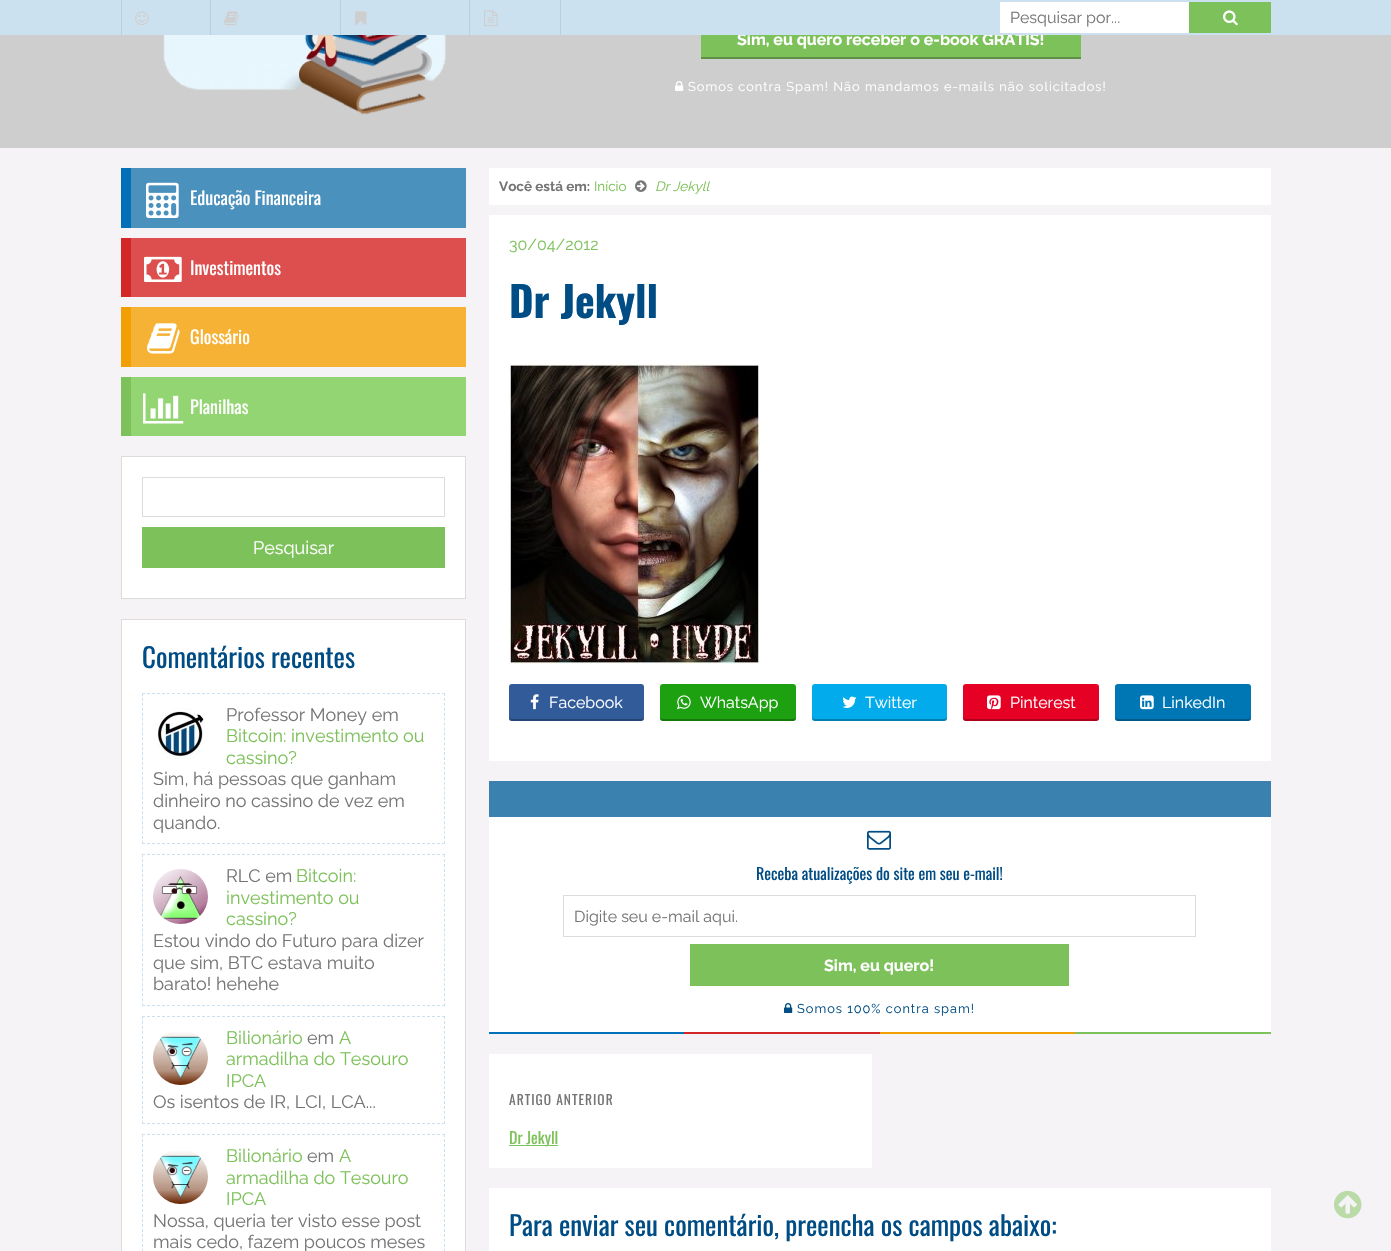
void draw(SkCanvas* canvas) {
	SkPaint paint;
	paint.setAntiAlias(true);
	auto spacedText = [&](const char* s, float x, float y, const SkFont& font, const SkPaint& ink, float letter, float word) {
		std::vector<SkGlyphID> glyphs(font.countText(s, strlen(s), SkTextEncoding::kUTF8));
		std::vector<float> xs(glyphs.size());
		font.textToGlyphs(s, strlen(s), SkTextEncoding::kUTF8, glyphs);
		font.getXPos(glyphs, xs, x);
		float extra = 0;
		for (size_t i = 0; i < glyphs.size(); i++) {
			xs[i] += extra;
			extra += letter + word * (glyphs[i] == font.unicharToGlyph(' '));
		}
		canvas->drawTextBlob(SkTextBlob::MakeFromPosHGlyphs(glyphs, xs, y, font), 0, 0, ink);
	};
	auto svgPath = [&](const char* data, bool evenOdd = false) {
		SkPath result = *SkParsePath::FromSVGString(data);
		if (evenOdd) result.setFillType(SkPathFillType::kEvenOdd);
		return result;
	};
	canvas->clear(0xfff6f3f7);
	paint.setColor(0xffcecece);
	canvas->drawRect(SkRect::MakeXYWH(0, 35, 1391, 113), paint);
	paint.setColor(0xff7dc15a);
	canvas->drawRect(SkRect::MakeXYWH(701, 35, 380, 22), paint);
	SkFont f1(fontMgr->matchFamilyStyle("Raleway", SkFontStyle::Bold()), 16);
	f1.setSubpixel(true);
	paint.setColor(0xffffffff);
	canvas->drawString("Sim, eu quero receber o e-book GRÁTIS!", 737, 45, f1, paint);
	paint.setColor(0xffcce1ef);
	canvas->drawRect(SkRect::MakeXYWH(0, 0, 1391, 35), paint);
	paint.setColor(0xffb5d0e2);
	canvas->drawRect(SkRect::MakeXYWH(210, 0, 1, 35), paint);
	canvas->drawRect(SkRect::MakeXYWH(121, 0, 1, 35), paint);
	canvas->drawImageRect(SkImages::DeferredFromEncodedData(SkData::MakeFromFileName("img1.png")), SkRect::MakeXYWH(135, 11, 14, 14), SkSamplingOptions());
	canvas->drawRect(SkRect::MakeXYWH(340, 0, 1, 35), paint);
	canvas->drawImageRect(SkImages::DeferredFromEncodedData(SkData::MakeFromFileName("img2.png")), SkRect::MakeXYWH(224, 11, 15, 15), SkSamplingOptions());
	canvas->drawRect(SkRect::MakeXYWH(469, 0, 1, 35), paint);
	canvas->drawImageRect(SkImages::DeferredFromEncodedData(SkData::MakeFromFileName("img3.png")), SkRect::MakeXYWH(355, 11, 12, 14), SkSamplingOptions());
	canvas->drawRect(SkRect::MakeXYWH(560, 0, 1, 35), paint);
	canvas->drawImageRect(SkImages::DeferredFromEncodedData(SkData::MakeFromFileName("img4.png")), SkRect::MakeXYWH(484, 10, 14, 17), SkSamplingOptions());
	paint.setColor(0xffffffff);
	canvas->drawRect(SkRect::MakeXYWH(1000, 2, 189, 31), paint);
	SkFont f2(fontMgr->matchFamilyStyle("Raleway", SkFontStyle::Normal()), 16);
	f2.setSubpixel(true);
	paint.setColor(0xff757575);
	canvas->drawString("Pesquisar por...", 1010, 23, f2, paint);
	paint.setColor(0xff7dc15a);
	canvas->drawRect(SkRect::MakeXYWH(1189, 2, 82, 31), paint);
	canvas->drawImageRect(SkImages::DeferredFromEncodedData(SkData::MakeFromFileName("img5.png")), SkRect::MakeXYWH(1223, 10, 15, 16), SkSamplingOptions());
	canvas->drawImageRect(SkImages::DeferredFromEncodedData(SkData::MakeFromFileName("img6.png")), SkRect::MakeXYWH(163, 35, 283, 80), SkSamplingOptions());
	paint.setColor(0xff5e9144);
	canvas->drawRect(SkRect::MakeXYWH(701, 57, 380, 2), paint);
	canvas->drawImageRect(SkImages::DeferredFromEncodedData(SkData::MakeFromFileName("img7.png")), SkRect::MakeXYWH(675, 81, 9, 10), SkSamplingOptions());
	SkFont f3(fontMgr->matchFamilyStyle("Raleway", SkFontStyle::Normal()), 12.8);
	f3.setSubpixel(true);
	paint.setColor(0xffffffff);
	spacedText("Somos contra Spam! Não mandamos e-mails não solicitados!", 688, 91, f3, paint, 1, 0);
	paint.setColor(0xff4b91be);
	canvas->drawRect(SkRect::MakeXYWH(131, 168, 335, 60), paint);
	paint.setColor(0xff0070b9);
	canvas->drawRect(SkRect::MakeXYWH(121, 168, 10, 60), paint);
	canvas->drawImageRect(SkImages::DeferredFromEncodedData(SkData::MakeFromFileName("img8.png")), SkRect::MakeXYWH(146, 182, 33, 36), SkSamplingOptions());
	SkFont f4(fontMgr->matchFamilyStyle("Oswald", SkFontStyle::Normal()), 18);
	f4.setSubpixel(true);
	paint.setColor(0xffffffff);
	canvas->drawString("Educação Financeira", 190, 205, f4, paint);
	paint.setColor(0xffdd4e4e);
	canvas->drawRect(SkRect::MakeXYWH(131, 238, 335, 59), paint);
	paint.setColor(0xffd32727);
	canvas->drawRect(SkRect::MakeXYWH(121, 238, 10, 59), paint);
	canvas->drawImageRect(SkImages::DeferredFromEncodedData(SkData::MakeFromFileName("img9.png")), SkRect::MakeXYWH(144, 256, 38, 26), SkSamplingOptions());
	paint.setColor(0xffffffff);
	canvas->drawString("Investimentos", 190, 275, f4, paint);
	paint.setColor(0xfff5b235);
	canvas->drawRect(SkRect::MakeXYWH(131, 307, 335, 60), paint);
	paint.setColor(0xfff29f05);
	canvas->drawRect(SkRect::MakeXYWH(121, 307, 10, 60), paint);
	canvas->drawImageRect(SkImages::DeferredFromEncodedData(SkData::MakeFromFileName("img10.png")), SkRect::MakeXYWH(147, 323, 33, 31), SkSamplingOptions());
	paint.setColor(0xffffffff);
	canvas->drawString("Glossário", 190, 344, f4, paint);
	paint.setColor(0xff94d573);
	canvas->drawRect(SkRect::MakeXYWH(131, 377, 335, 59), paint);
	paint.setColor(0xff7dc15a);
	canvas->drawRect(SkRect::MakeXYWH(121, 377, 10, 59), paint);
	canvas->drawImageRect(SkImages::DeferredFromEncodedData(SkData::MakeFromFileName("img11.png")), SkRect::MakeXYWH(143, 393, 41, 31), SkSamplingOptions());
	paint.setColor(0xffffffff);
	canvas->drawString("Planilhas", 190, 414, f4, paint);
	canvas->drawRect(SkRect::MakeXYWH(121.5, 456.5, 344, 142), paint);
	paint.setStroke(true);
	paint.setStrokeWidth(1);
	paint.setColor(0xffdddcd8);
	canvas->drawRect(SkRect::MakeXYWH(121.5, 456.5, 344, 142), paint);
	canvas->drawRect(SkRect::MakeXYWH(142.5, 477.5, 302, 39), paint);
	paint.setStroke(false);
	paint.setColor(0xff7dc15a);
	canvas->drawRect(SkRect::MakeXYWH(142, 527, 303, 41), paint);
	SkFont f5(fontMgr->matchFamilyStyle("Raleway", SkFontStyle::Normal()), 18);
	f5.setSubpixel(true);
	paint.setColor(0xffffffff);
	canvas->drawString("Pesquisar", 253, 554, f5, paint);
	canvas->drawRect(SkRect::MakeXYWH(121.5, 619.5, 344, 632), paint);
	paint.setStroke(true);
	paint.setColor(0xffdddcd8);
	canvas->drawRect(SkRect::MakeXYWH(121.5, 619.5, 344, 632), paint);
	SkFont f6(fontMgr->matchFamilyStyle("Oswald", SkFontStyle::Normal()), 27);
	f6.setSubpixel(true);
	paint.setStroke(false);
	paint.setColor(0xff004c84);
	canvas->drawString("Comentários recentes", 142, 668, f6, paint);
	paint.setStroke(true);
	paint.setColor(0xffcce1ef);
	paint.setPathEffect(SkDashPathEffect::Make({{3, 2}}, 0));
	canvas->drawPath(svgPath("M142 693.5H445"), paint);
	paint.setPathEffect(nullptr);
	paint.setPathEffect(SkDashPathEffect::Make({{3, 1.93f}}, 0));
	canvas->drawPath(svgPath("M444.5 693V844"), paint);
	paint.setPathEffect(nullptr);
	paint.setPathEffect(SkDashPathEffect::Make({{3, 2}}, 0));
	canvas->drawPath(svgPath("M142 843.5H445"), paint);
	paint.setPathEffect(nullptr);
	paint.setPathEffect(SkDashPathEffect::Make({{3, 1.93f}}, 0));
	canvas->drawPath(svgPath("M142.5 693V844"), paint);
	paint.setPathEffect(nullptr);
	canvas->drawImageRect(SkImages::DeferredFromEncodedData(SkData::MakeFromFileName("img12.png")), SkRect::MakeXYWH(153, 708, 55, 51), SkSamplingOptions());
	paint.setStroke(false);
	paint.setColor(0xff757575);
	canvas->drawString("Professor Money em", 226, 721, f5, paint);
	paint.setColor(0xff7dc15a);
	canvas->drawString("Bitcoin: investimento ou", 226, 742, f5, paint);
	canvas->drawString("cassino?", 226, 764, f5, paint);
	paint.setColor(0xff757575);
	canvas->drawString("Sim, há pessoas que ganham", 153, 785, f5, paint);
	canvas->drawString("dinheiro no cassino de vez em", 153, 807, f5, paint);
	canvas->drawString("quando.", 153, 829, f5, paint);
	paint.setStroke(true);
	paint.setColor(0xffcce1ef);
	paint.setPathEffect(SkDashPathEffect::Make({{3, 2}}, 0));
	canvas->drawPath(svgPath("M142 854.5H445"), paint);
	paint.setPathEffect(nullptr);
	paint.setPathEffect(SkDashPathEffect::Make({{3, 1.97f}}, 0));
	canvas->drawPath(svgPath("M444.5 854V1006"), paint);
	paint.setPathEffect(nullptr);
	paint.setPathEffect(SkDashPathEffect::Make({{3, 2}}, 0));
	canvas->drawPath(svgPath("M142 1005.5H445"), paint);
	paint.setPathEffect(nullptr);
	paint.setPathEffect(SkDashPathEffect::Make({{3, 1.97f}}, 0));
	canvas->drawPath(svgPath("M142.5 854V1006"), paint);
	paint.setPathEffect(nullptr);
	canvas->drawImageRect(SkImages::DeferredFromEncodedData(SkData::MakeFromFileName("img13.png")), SkRect::MakeXYWH(153, 869, 55, 55), SkSamplingOptions());
	paint.setStroke(false);
	paint.setColor(0xff757575);
	canvas->drawString("RLC em", 226, 882, f5, paint);
	paint.setColor(0xff7dc15a);
	canvas->drawString("Bitcoin:", 296, 882, f5, paint);
	canvas->drawString("investimento ou", 226, 904, f5, paint);
	canvas->drawString("cassino?", 226, 925, f5, paint);
	paint.setColor(0xff757575);
	canvas->drawString("Estou vindo do Futuro para dizer", 153, 947, f5, paint);
	canvas->drawString("que sim, BTC estava muito", 153, 969, f5, paint);
	canvas->drawString("barato! hehehe", 153, 990, f5, paint);
	paint.setStroke(true);
	paint.setColor(0xffcce1ef);
	paint.setPathEffect(SkDashPathEffect::Make({{3, 2}}, 0));
	canvas->drawPath(svgPath("M142 1016.5H445"), paint);
	paint.setPathEffect(nullptr);
	paint.setPathEffect(SkDashPathEffect::Make({{3, 2}}, 0));
	canvas->drawPath(svgPath("M444.5 1016V1124"), paint);
	paint.setPathEffect(nullptr);
	paint.setPathEffect(SkDashPathEffect::Make({{3, 2}}, 0));
	canvas->drawPath(svgPath("M142 1123.5H445"), paint);
	paint.setPathEffect(nullptr);
	paint.setPathEffect(SkDashPathEffect::Make({{3, 2}}, 0));
	canvas->drawPath(svgPath("M142.5 1016V1124"), paint);
	paint.setPathEffect(nullptr);
	canvas->drawImageRect(SkImages::DeferredFromEncodedData(SkData::MakeFromFileName("img14.png")), SkRect::MakeXYWH(153, 1032, 55, 53), SkSamplingOptions());
	paint.setStroke(false);
	paint.setColor(0xff7dc15a);
	canvas->drawString("Bilionário", 226, 1044, f5, paint);
	paint.setColor(0xff757575);
	canvas->drawString("em", 307, 1044, f5, paint);
	paint.setColor(0xff7dc15a);
	canvas->drawString("A", 339, 1044, f5, paint);
	canvas->drawString("armadilha do Tesouro", 226, 1065, f5, paint);
	canvas->drawString("IPCA", 226, 1087, f5, paint);
	paint.setColor(0xff757575);
	canvas->drawString("Os isentos de IR, LCI, LCA...", 153, 1108, f5, paint);
	paint.setStroke(true);
	paint.setColor(0xffcce1ef);
	paint.setPathEffect(SkDashPathEffect::Make({{3, 2}}, 0));
	canvas->drawPath(svgPath("M142 1134.5H445"), paint);
	paint.setPathEffect(nullptr);
	paint.setPathEffect(SkDashPathEffect::Make({{3, 2}}, 0));
	canvas->drawPath(svgPath("M444.5 1134V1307"), paint);
	paint.setPathEffect(nullptr);
	paint.setPathEffect(SkDashPathEffect::Make({{3, 2}}, 0));
	canvas->drawPath(svgPath("M142.5 1134V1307"), paint);
	paint.setPathEffect(nullptr);
	canvas->drawImageRect(SkImages::DeferredFromEncodedData(SkData::MakeFromFileName("img14.png")), SkRect::MakeXYWH(153, 1151, 55, 53), SkSamplingOptions());
	paint.setStroke(false);
	paint.setColor(0xff7dc15a);
	canvas->drawString("Bilionário", 226, 1162, f5, paint);
	paint.setColor(0xff757575);
	canvas->drawString("em", 307, 1162, f5, paint);
	paint.setColor(0xff7dc15a);
	canvas->drawString("A", 339, 1162, f5, paint);
	canvas->drawString("armadilha do Tesouro", 226, 1184, f5, paint);
	canvas->drawString("IPCA", 226, 1205, f5, paint);
	paint.setColor(0xff757575);
	canvas->drawString("Nossa, queria ter visto esse post", 153, 1227, f5, paint);
	canvas->drawString("mais cedo, fazem poucos meses", 153, 1248, f5, paint);
	paint.setColor(0xffffffff);
	canvas->drawRect(SkRect::MakeXYWH(489, 168, 782, 37), paint);
	SkFont f7(fontMgr->matchFamilyStyle("Raleway", SkFontStyle::Bold()), 13.5);
	f7.setSubpixel(true);
	paint.setColor(0xff757575);
	canvas->drawString("Você está em:", 499, 191, f7, paint);
	SkFont f8(fontMgr->matchFamilyStyle("Raleway", SkFontStyle::Normal()), 13.5);
	f8.setSubpixel(true);
	paint.setColor(0xff7dc15a);
	canvas->drawString("Início", 594, 191, f8, paint);
	canvas->drawImageRect(SkImages::DeferredFromEncodedData(SkData::MakeFromFileName("img15.png")), SkRect::MakeXYWH(635, 180, 12, 12), SkSamplingOptions());
	SkFont f9(fontMgr->matchFamilyStyle("Raleway", SkFontStyle::Italic()), 13.5);
	f9.setSubpixel(true);
	canvas->drawString("Dr Jekyll", 655, 191, f9, paint);
	paint.setColor(0xffffffff);
	canvas->drawRect(SkRect::MakeXYWH(489, 215, 782, 546), paint);
	paint.setColor(0xff7dc15a);
	canvas->drawString("30/04/2012", 509, 250, f2, paint);
	SkFont f10(fontMgr->matchFamilyStyle("Oswald", SkFontStyle::Bold()), 42);
	f10.setSubpixel(true);
	paint.setColor(0xff004c84);
	canvas->drawString("Dr Jekyll", 509, 318, f10, paint);
	canvas->drawImageRect(SkImages::DeferredFromEncodedData(SkData::MakeFromFileName("img16.png")), SkRect::MakeXYWH(509, 364, 251, 300), SkSamplingOptions());
	paint.setColor(0xff325c99);
	canvas->drawRoundRect(SkRect::MakeXYWH(509, 684, 135, 37), 3, 3, paint);
	paint.setColor(0x40000000);
	canvas->drawPath(svgPath("M509 716V718C509 720 510 721 512 721H641C643 721 644 720 644 718V716C644 718 643 719 641 719H512C510 719 509 718 509 716Z"), paint);
	canvas->drawImageRect(SkImages::DeferredFromEncodedData(SkData::MakeFromFileName("img17.png")), SkRect::MakeXYWH(530, 694, 9, 16), SkSamplingOptions());
	paint.setColor(0xffffffff);
	canvas->drawString("Facebook", 549, 708, f2, paint);
	paint.setColor(0xff1da110);
	canvas->drawRoundRect(SkRect::MakeXYWH(660, 684, 136, 37), 3, 3, paint);
	paint.setColor(0x40000000);
	canvas->drawPath(svgPath("M660 716V718C660 720 661 721 663 721H793C795 721 796 720 796 718V716C796 718 795 719 793 719H663C661 719 660 718 660 716Z"), paint);
	canvas->drawImageRect(SkImages::DeferredFromEncodedData(SkData::MakeFromFileName("img18.png")), SkRect::MakeXYWH(677, 695, 14, 15), SkSamplingOptions());
	paint.setColor(0xffffffff);
	canvas->drawString("WhatsApp", 700, 708, f2, paint);
	paint.setColor(0xff02acec);
	canvas->drawRoundRect(SkRect::MakeXYWH(812, 684, 135, 37), 3, 3, paint);
	paint.setColor(0x40000000);
	canvas->drawPath(svgPath("M812 716V718C812 720 813 721 815 721H944C946 721 947 720 947 718V716C947 718 946 719 944 719H815C813 719 812 718 812 716Z"), paint);
	canvas->drawImageRect(SkImages::DeferredFromEncodedData(SkData::MakeFromFileName("img19.png")), SkRect::MakeXYWH(842, 696, 15, 12), SkSamplingOptions());
	paint.setColor(0xffffffff);
	canvas->drawString("Twitter", 865, 708, f2, paint);
	paint.setColor(0xffe60023);
	canvas->drawRoundRect(SkRect::MakeXYWH(963, 684, 136, 37), 3, 3, paint);
	paint.setColor(0x40000000);
	canvas->drawPath(svgPath("M963 716V718C963 720 964 721 966 721H1096C1098 721 1099 720 1099 718V716C1099 718 1098 719 1096 719H966C964 719 963 718 963 716Z"), paint);
	canvas->drawImageRect(SkImages::DeferredFromEncodedData(SkData::MakeFromFileName("img20.png")), SkRect::MakeXYWH(987, 695, 14, 15), SkSamplingOptions());
	paint.setColor(0xffffffff);
	canvas->drawString("Pinterest", 1010, 708, f2, paint);
	paint.setColor(0xff0077b5);
	canvas->drawRoundRect(SkRect::MakeXYWH(1115, 684, 136, 37), 3, 3, paint);
	paint.setColor(0x40000000);
	canvas->drawPath(svgPath("M1115 716V718C1115 720 1116 721 1118 721H1248C1250 721 1251 720 1251 718V716C1251 718 1250 719 1248 719H1118C1116 719 1115 718 1115 716Z"), paint);
	canvas->drawImageRect(SkImages::DeferredFromEncodedData(SkData::MakeFromFileName("img21.png")), SkRect::MakeXYWH(1140, 695, 14, 15), SkSamplingOptions());
	paint.setColor(0xffffffff);
	canvas->drawString("LinkedIn", 1162, 708, f2, paint);
	paint.setColor(0xff3a81af);
	canvas->drawRect(SkRect::MakeXYWH(489, 781, 782, 36), paint);
	paint.setColor(0xffffffff);
	canvas->drawRect(SkRect::MakeXYWH(489, 817, 782, 215), paint);
	canvas->drawImageRect(SkImages::DeferredFromEncodedData(SkData::MakeFromFileName("img22.png")), SkRect::MakeXYWH(867, 830, 24, 20), SkSamplingOptions());
	SkFont f11(fontMgr->matchFamilyStyle("Oswald", SkFontStyle::Normal()), 16);
	f11.setSubpixel(true);
	paint.setColor(0xff004c84);
	canvas->drawString("Receba atualizações do site em seu e-mail!", 756, 880, f11, paint);
	paint.setStroke(true);
	paint.setColor(0xffdddcd8);
	canvas->drawRect(SkRect::MakeXYWH(563.5, 895.5, 632, 41), paint);
	paint.setStroke(false);
	paint.setColor(0xff757575);
	canvas->drawString("Digite seu e-mail aqui.", 574, 922, f2, paint);
	paint.setColor(0xff7dc15a);
	canvas->drawRect(SkRect::MakeXYWH(690, 944, 379, 42), paint);
	paint.setColor(0xffffffff);
	canvas->drawString("Sim, eu quero!", 824, 971, f1, paint);
	canvas->drawImageRect(SkImages::DeferredFromEncodedData(SkData::MakeFromFileName("img23.png")), SkRect::MakeXYWH(784, 1003, 9, 10), SkSamplingOptions());
	paint.setColor(0xff004c84);
	spacedText("Somos 100% contra spam!", 797, 1013, f3, paint, 1, 0);
	paint.setColor(0xff0070b9);
	canvas->drawRect(SkRect::MakeXYWH(489, 1032, 195, 2), paint);
	paint.setColor(0xffd32727);
	canvas->drawRect(SkRect::MakeXYWH(684, 1032, 196, 2), paint);
	paint.setColor(0xfff29f05);
	canvas->drawRect(SkRect::MakeXYWH(880, 1032, 195, 2), paint);
	paint.setColor(0xff7dc15a);
	canvas->drawRect(SkRect::MakeXYWH(1075, 1032, 196, 2), paint);
	paint.setColor(0xffffffff);
	canvas->drawRect(SkRect::MakeXYWH(489, 1054, 383, 114), paint);
	SkFont f12(fontMgr->matchFamilyStyle("Oswald", SkFontStyle::Normal()), 13.5);
	f12.setSubpixel(true);
	paint.setColor(0xff757575);
	spacedText("ARTIGO ANTERIOR", 509, 1105, f12, paint, 1, 0);
	paint.setColor(0xff7dc15a);
	canvas->drawRect(SkRect::MakeXYWH(509, 1145, 49, 1), paint);
	canvas->drawString("Dr Jekyll", 509, 1144, f11, paint);
	paint.setColor(0xffffffff);
	canvas->drawRect(SkRect::MakeXYWH(489, 1188, 782, 63), paint);
	paint.setColor(0xff004c84);
	canvas->drawString("Para enviar seu comentário, preencha os campos abaixo:", 509, 1236, f6, paint);
	canvas->drawImageRect(SkImages::DeferredFromEncodedData(SkData::MakeFromFileName("img24.png")), SkRect::MakeXYWH(1334, 1190, 28, 29), SkSamplingOptions());
}
